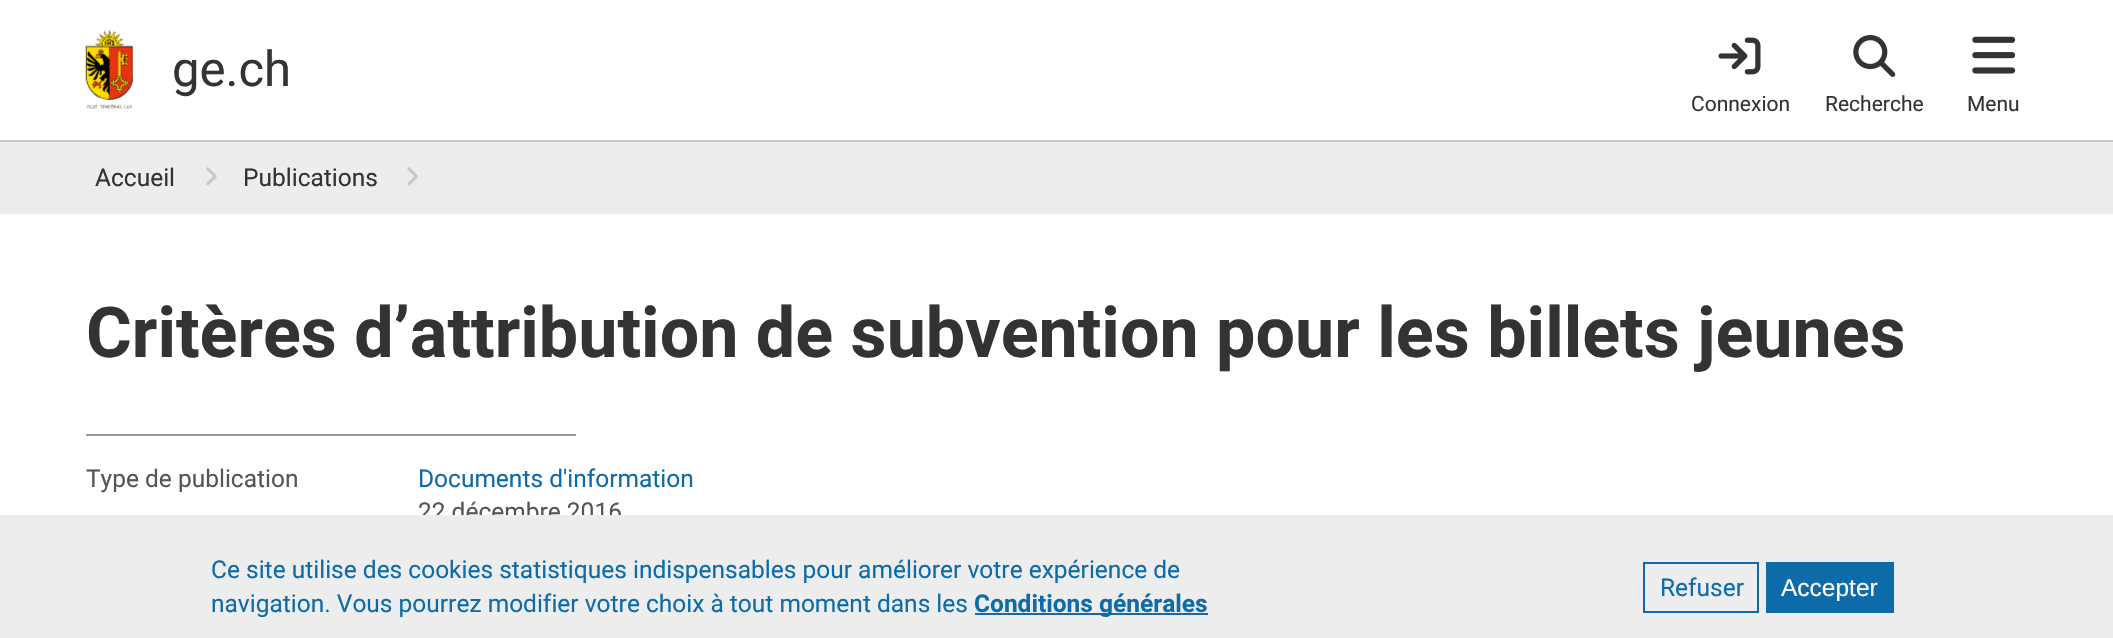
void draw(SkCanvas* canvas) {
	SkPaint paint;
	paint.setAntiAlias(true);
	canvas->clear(0xffffffff);
	paint.setColor(0xffc9c9c9);
	canvas->drawRect(SkRect::MakeXYWH(0, 140, 2113, 2), paint);
	canvas->drawImageRect(SkImages::DeferredFromEncodedData(SkData::MakeFromFileName("img1.png")), SkRect::MakeXYWH(85, 29, 48, 80), SkSamplingOptions());
	SkFont f1(fontMgr->matchFamilyStyle("Roboto", SkFontStyle::Normal()), 49);
	f1.setSubpixel(true);
	paint.setColor(0xff333333);
	canvas->drawString("ge.ch", 172, 86, f1, paint);
	canvas->drawImageRect(SkImages::DeferredFromEncodedData(SkData::MakeFromFileName("img2.png")), SkRect::MakeXYWH(1718, 37, 43, 38), SkSamplingOptions());
	SkFont f2(fontMgr->matchFamilyStyle("Roboto", SkFontStyle::Normal()), 21);
	f2.setSubpixel(true);
	canvas->drawString("Connexion", 1691, 111, f2, paint);
	canvas->drawImageRect(SkImages::DeferredFromEncodedData(SkData::MakeFromFileName("img3.png")), SkRect::MakeXYWH(1853, 35, 43, 42), SkSamplingOptions());
	canvas->drawString("Recherche", 1825, 111, f2, paint);
	canvas->drawImageRect(SkImages::DeferredFromEncodedData(SkData::MakeFromFileName("img4.png")), SkRect::MakeXYWH(1972, 36, 44, 38), SkSamplingOptions());
	canvas->drawString("Menu", 1967, 111, f2, paint);
	paint.setColor(0xffededed);
	canvas->drawRect(SkRect::MakeXYWH(0, 142, 2113, 72), paint);
	SkFont f3(fontMgr->matchFamilyStyle("Roboto", SkFontStyle::Normal()), 24.5);
	f3.setSubpixel(true);
	paint.setColor(0xff333333);
	canvas->drawString("Accueil", 95, 186, f3, paint);
	canvas->drawImageRect(SkImages::DeferredFromEncodedData(SkData::MakeFromFileName("img5.png")), SkRect::MakeXYWH(206, 167, 11, 19), SkSamplingOptions());
	canvas->drawString("Publications", 243, 186, f3, paint);
	canvas->drawImageRect(SkImages::DeferredFromEncodedData(SkData::MakeFromFileName("img6.png")), SkRect::MakeXYWH(407, 167, 11, 19), SkSamplingOptions());
	SkFont f4(fontMgr->matchFamilyStyle("Roboto", SkFontStyle::Bold()), 70);
	f4.setSubpixel(true);
	canvas->drawString("Critères d’attribution de subvention pour les billets jeunes", 86, 357, f4, paint);
	paint.setColor(0xff999999);
	canvas->drawRect(SkRect::MakeXYWH(86, 434, 490, 2), paint);
	paint.setColor(0xff555555);
	canvas->drawString("Type de publication", 86, 487, f3, paint);
	paint.setColor(0xff0c6ba8);
	canvas->drawString("Documents d'information", 418, 487, f3, paint);
	paint.setColor(0xff555555);
	canvas->drawString("22 décembre 2016", 418, 520, f3, paint);
	paint.setColor(0xffededed);
	canvas->drawRect(SkRect::MakeXYWH(0, 515, 2113, 123), paint);
	paint.setColor(0xff0c6ba8);
	canvas->drawString("Ce site utilise des cookies statistiques indispensables pour améliorer votre expérience de", 211, 578, f3, paint);
	canvas->drawString("navigation. Vous pourrez modifier votre choix à tout moment dans les", 211, 612, f3, paint);
	canvas->drawRect(SkRect::MakeXYWH(975, 613, 233, 2), paint);
	SkFont f5(fontMgr->matchFamilyStyle("Roboto", SkFontStyle::Bold()), 24.5);
	f5.setSubpixel(true);
	canvas->drawString("Conditions générales", 974, 612, f5, paint);
	paint.setStroke(true);
	paint.setStrokeWidth(2);
	canvas->drawRect(SkRect::MakeXYWH(1644, 563, 114, 49), paint);
	paint.setStroke(false);
	canvas->drawString("Refuser", 1660, 596, f3, paint);
	canvas->drawRect(SkRect::MakeXYWH(1766, 562, 128, 51), paint);
	SkFont f6(fontMgr->matchFamilyStyle("Liberation Sans", SkFontStyle::Normal()), 24.5);
	f6.setSubpixel(true);
	paint.setColor(0xffffffff);
	canvas->drawString("Accepter", 1781, 596, f6, paint);
}
